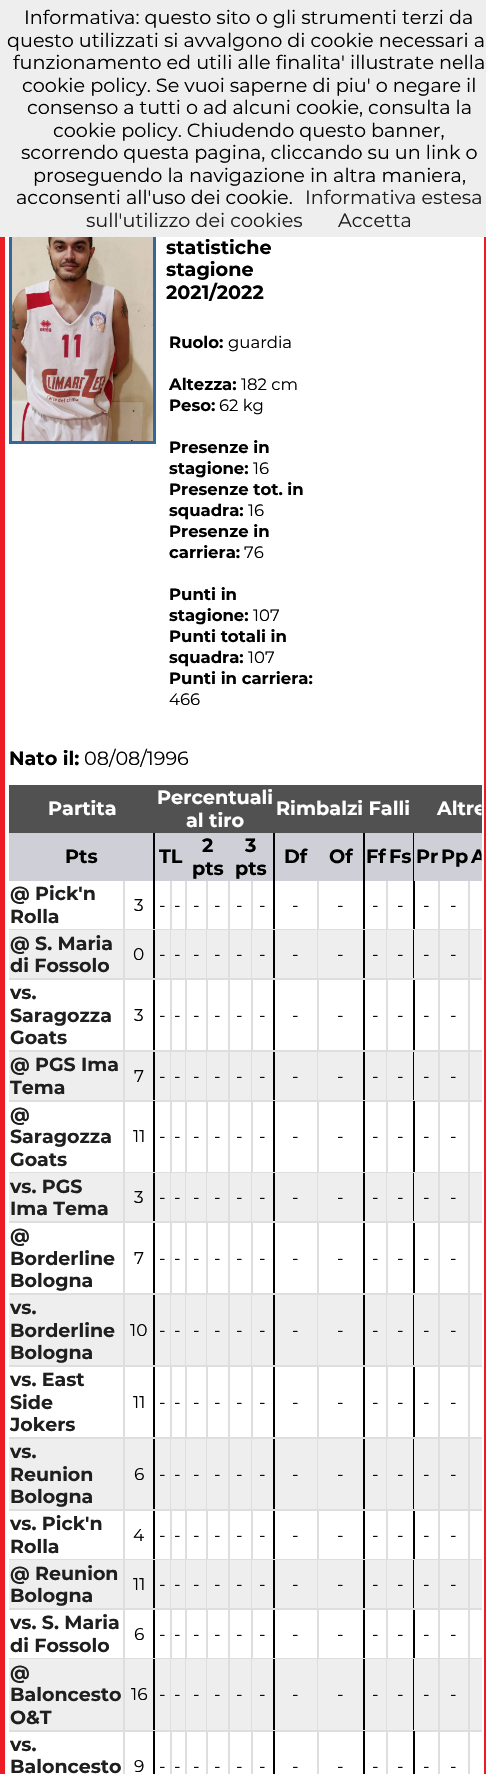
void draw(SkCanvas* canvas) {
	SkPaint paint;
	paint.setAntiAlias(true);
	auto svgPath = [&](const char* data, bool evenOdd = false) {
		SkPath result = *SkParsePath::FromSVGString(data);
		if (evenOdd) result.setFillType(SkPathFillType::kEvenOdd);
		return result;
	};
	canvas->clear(0xffed1c24);
	paint.setColor(0xffffffff);
	canvas->drawPath(svgPath("M27 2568H363V92H23C13 94 6 103 6 114V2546C6 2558 15 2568 27 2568Z"), paint);
	paint.setStroke(true);
	paint.setStrokeWidth(3);
	paint.setColor(0xff336699);
	canvas->drawRect(SkRect::MakeXYWH(10.5, 189.5, 144, 253), paint);
	paint.setStroke(false);
	paint.setColor(0xffeeeeee);
	canvas->drawRect(SkRect::MakeXYWH(0, 0, 486, 237), paint);
	SkFont f1(fontMgr->matchFamilyStyle("Montserrat", SkFontStyle::Normal()), 19.2);
	f1.setSubpixel(true);
	paint.setColor(0xff000000);
	canvas->drawString("Informativa: questo sito o gli strumenti terzi da", 24, 24, f1, paint);
	canvas->drawString("questo utilizzati si avvalgono di cookie necessari a", 7, 47, f1, paint);
	canvas->drawString("funzionamento ed utili alle finalita' illustrate nella", 13, 69, f1, paint);
	canvas->drawString("cookie policy. Se vuoi saperne di piu' o negare il", 22, 92, f1, paint);
	canvas->drawString("consenso a tutti o ad alcuni cookie, consulta la", 27, 114, f1, paint);
	canvas->drawString("cookie policy. Chiudendo questo banner,", 53, 137, f1, paint);
	canvas->drawString("scorrendo questa pagina, cliccando su un link o", 21, 159, f1, paint);
	canvas->drawString("proseguendo la navigazione in altra maniera,", 33, 182, f1, paint);
	canvas->drawString("acconsenti all'uso dei cookie.", 16, 204, f1, paint);
	paint.setColor(0xff1f1f1f);
	canvas->drawString("Informativa estesa", 305, 204, f1, paint);
	canvas->drawString("sull'utilizzo dei cookies", 86, 227, f1, paint);
	canvas->drawString("Accetta", 338, 227, f1, paint);
	paint.setColor(0xffffffff);
	canvas->drawRect(SkRect::MakeXYWH(363, 237, 121, 1537), paint);
	canvas->drawRect(SkRect::MakeXYWH(5, 237, 1, 1537), paint);
	canvas->drawImageRect(SkImages::DeferredFromEncodedData(SkData::MakeFromFileName("img1.png")), SkRect::MakeXYWH(12, 237, 141, 204), SkSamplingOptions());
	SkFont f2(fontMgr->matchFamilyStyle("Montserrat", SkFontStyle::Bold()), 19.2);
	f2.setSubpixel(true);
	paint.setColor(0xff000000);
	canvas->drawString("statistiche", 166, 254, f2, paint);
	canvas->drawString("stagione", 166, 276, f2, paint);
	canvas->drawString("2021/2022", 166, 299, f2, paint);
	SkFont f3(fontMgr->matchFamilyStyle("Montserrat", SkFontStyle::Bold()), 16.5);
	f3.setSubpixel(true);
	canvas->drawString("Ruolo:", 169, 348, f3, paint);
	SkFont f4(fontMgr->matchFamilyStyle("Montserrat", SkFontStyle::Normal()), 16.5);
	f4.setSubpixel(true);
	canvas->drawString("guardia", 228, 348, f4, paint);
	canvas->drawString("Altezza:", 169, 390, f3, paint);
	canvas->drawString("182 cm", 241, 390, f4, paint);
	canvas->drawString("Peso:", 169, 411, f3, paint);
	canvas->drawString("62 kg", 219, 411, f4, paint);
	canvas->drawString("Presenze in", 169, 453, f3, paint);
	canvas->drawString("stagione:", 169, 474, f3, paint);
	canvas->drawString("16", 253, 474, f4, paint);
	canvas->drawString("Presenze tot. in", 169, 495, f3, paint);
	canvas->drawString("squadra:", 169, 516, f3, paint);
	canvas->drawString("16", 248, 516, f4, paint);
	canvas->drawString("Presenze in", 169, 537, f3, paint);
	canvas->drawString("carriera:", 169, 558, f3, paint);
	canvas->drawString("76", 244, 558, f4, paint);
	canvas->drawString("Punti in", 169, 600, f3, paint);
	canvas->drawString("stagione:", 169, 621, f3, paint);
	canvas->drawString("107", 253, 621, f4, paint);
	canvas->drawString("Punti totali in", 169, 642, f3, paint);
	canvas->drawString("squadra:", 169, 663, f3, paint);
	canvas->drawString("107", 248, 663, f4, paint);
	canvas->drawString("Punti in carriera:", 169, 684, f3, paint);
	canvas->drawString("466", 169, 705, f4, paint);
	canvas->drawString("Nato il:", 9, 765, f2, paint);
	canvas->drawString("08/08/1996", 84, 765, f1, paint);
	paint.setColor(0xff515151);
	canvas->drawRect(SkRect::MakeXYWH(9, 785, 473, 48), paint);
	paint.setColor(0xffffffff);
	canvas->drawString("Partita", 48, 815, f2, paint);
	canvas->drawString("Percentuali", 157, 804, f2, paint);
	canvas->drawString("al tiro", 186, 827, f2, paint);
	canvas->drawString("Rimbalzi Falli", 276, 815, f2, paint);
	canvas->save();
	canvas->clipPath(svgPath("M27 91.5H460.5C472 91.5 481.5 101.5 481.5 114V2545.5C481.5 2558 472 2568 460.5 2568H27C15.5 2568 6 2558 6 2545.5V114C6 101.5 15.5 91.5 27 91.5Z"), true);
	canvas->drawString("Altre", 437, 815, f2, paint);
	canvas->restore();
	paint.setColor(0xffcfd0d7);
	canvas->drawRect(SkRect::MakeXYWH(9, 833, 144, 48), paint);
	paint.setColor(0xff000000);
	canvas->drawRect(SkRect::MakeXYWH(153, 833, 2, 268), paint);
	canvas->drawString("Pts", 65, 863, f2, paint);
	paint.setColor(0xffcfd0d7);
	canvas->drawRect(SkRect::MakeXYWH(155, 833, 118, 48), paint);
	paint.setColor(0xff000000);
	canvas->drawString("TL", 159, 863, f2, paint);
	canvas->drawString("2", 202, 852, f2, paint);
	canvas->drawString("pts", 192, 875, f2, paint);
	canvas->drawRect(SkRect::MakeXYWH(273, 833, 2, 268), paint);
	canvas->drawString("3", 245, 852, f2, paint);
	canvas->drawString("pts", 235, 875, f2, paint);
	paint.setColor(0xffcfd0d7);
	canvas->drawRect(SkRect::MakeXYWH(275, 833, 88, 48), paint);
	paint.setColor(0xff000000);
	canvas->drawString("Df", 284, 863, f2, paint);
	canvas->drawRect(SkRect::MakeXYWH(363, 833, 2, 268), paint);
	canvas->drawString("Of", 329, 863, f2, paint);
	paint.setColor(0xffcfd0d7);
	canvas->drawRect(SkRect::MakeXYWH(365, 833, 48, 48), paint);
	paint.setColor(0xff000000);
	canvas->drawString("Ff", 366, 863, f2, paint);
	canvas->drawRect(SkRect::MakeXYWH(413, 833, 1, 48), paint);
	canvas->drawString("Fs", 389, 863, f2, paint);
	paint.setColor(0xffcfd0d7);
	canvas->drawRect(SkRect::MakeXYWH(414, 833, 68, 48), paint);
	paint.setColor(0xff000000);
	canvas->drawString("Pr", 416, 863, f2, paint);
	canvas->drawString("Pp", 441, 863, f2, paint);
	canvas->save();
	canvas->clipPath(svgPath("M27 91.5H460.5C472 91.5 481.5 101.5 481.5 114V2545.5C481.5 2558 472 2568 460.5 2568H27C15.5 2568 6 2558 6 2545.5V114C6 101.5 15.5 91.5 27 91.5Z"), true);
	canvas->drawString("A", 471, 863, f2, paint);
	canvas->restore();
	paint.setColor(0xffdedede);
	canvas->drawRect(SkRect::MakeXYWH(123, 881, 2, 220), paint);
	canvas->drawRect(SkRect::MakeXYWH(9, 929, 146, 1), paint);
	SkFont f5(fontMgr->matchFamilyStyle("Montserrat", SkFontStyle::Bold()), 19);
	f5.setSubpixel(true);
	paint.setColor(0xff1f1f1f);
	canvas->drawString("@ Pick'n", 10, 900, f5, paint);
	canvas->drawString("Rolla", 10, 923, f5, paint);
	SkFont f6(fontMgr->matchFamilyStyle("Montserrat", SkFontStyle::Normal()), 17);
	f6.setSubpixel(true);
	paint.setColor(0xff000000);
	canvas->drawString("3", 134, 911, f6, paint);
	paint.setColor(0xffdedede);
	canvas->drawRect(SkRect::MakeXYWH(170, 881, 2, 49), paint);
	canvas->drawRect(SkRect::MakeXYWH(155, 929, 16, 1), paint);
	paint.setColor(0xff000000);
	canvas->drawString("-", 159, 911, f6, paint);
	paint.setColor(0xffdedede);
	canvas->drawRect(SkRect::MakeXYWH(185, 881, 2, 49), paint);
	canvas->drawRect(SkRect::MakeXYWH(171, 929, 15, 1), paint);
	paint.setColor(0xff000000);
	canvas->drawString("-", 174, 911, f6, paint);
	paint.setColor(0xffdedede);
	canvas->drawRect(SkRect::MakeXYWH(206, 881, 2, 49), paint);
	canvas->drawRect(SkRect::MakeXYWH(186, 929, 21, 1), paint);
	paint.setColor(0xff000000);
	canvas->drawString("-", 193, 911, f6, paint);
	paint.setColor(0xffdedede);
	canvas->drawRect(SkRect::MakeXYWH(228, 881, 2, 220), paint);
	canvas->drawRect(SkRect::MakeXYWH(207, 929, 23, 1), paint);
	paint.setColor(0xff000000);
	canvas->drawString("-", 214, 911, f6, paint);
	paint.setColor(0xffdedede);
	canvas->drawRect(SkRect::MakeXYWH(251, 881, 2, 49), paint);
	canvas->drawRect(SkRect::MakeXYWH(230, 929, 45, 1), paint);
	paint.setColor(0xff000000);
	canvas->drawString("-", 236, 911, f6, paint);
	canvas->drawString("-", 259, 911, f6, paint);
	paint.setColor(0xffdedede);
	canvas->drawRect(SkRect::MakeXYWH(317, 881, 2, 49), paint);
	canvas->drawRect(SkRect::MakeXYWH(275, 929, 90, 1), paint);
	paint.setColor(0xff000000);
	canvas->drawString("-", 292, 911, f6, paint);
	canvas->drawString("-", 337, 911, f6, paint);
	paint.setColor(0xffdedede);
	canvas->drawRect(SkRect::MakeXYWH(386, 881, 2, 49), paint);
	canvas->drawRect(SkRect::MakeXYWH(365, 929, 22, 1), paint);
	paint.setColor(0xff000000);
	canvas->drawString("-", 372, 911, f6, paint);
	canvas->drawRect(SkRect::MakeXYWH(413, 881, 2, 49), paint);
	paint.setColor(0xffdedede);
	canvas->drawRect(SkRect::MakeXYWH(387, 929, 27, 1), paint);
	paint.setColor(0xff000000);
	canvas->drawString("-", 397, 911, f6, paint);
	paint.setColor(0xffdedede);
	canvas->drawRect(SkRect::MakeXYWH(438, 881, 2, 220), paint);
	canvas->drawRect(SkRect::MakeXYWH(414, 929, 26, 1), paint);
	paint.setColor(0xff000000);
	canvas->drawString("-", 423, 911, f6, paint);
	paint.setColor(0xffdedede);
	canvas->drawRect(SkRect::MakeXYWH(468, 881, 2, 220), paint);
	canvas->drawRect(SkRect::MakeXYWH(440, 929, 42, 1), paint);
	paint.setColor(0xff000000);
	canvas->drawString("-", 450, 911, f6, paint);
	paint.setColor(0xffeeeeee);
	canvas->drawRect(SkRect::MakeXYWH(9, 930, 114, 48), paint);
	paint.setColor(0xffdedede);
	canvas->drawRect(SkRect::MakeXYWH(9, 978, 146, 2), paint);
	paint.setColor(0xff1f1f1f);
	canvas->drawString("@ S. Maria", 10, 950, f5, paint);
	canvas->drawString("di Fossolo", 10, 972, f5, paint);
	paint.setColor(0xffeeeeee);
	canvas->drawRect(SkRect::MakeXYWH(125, 930, 28, 48), paint);
	paint.setColor(0xff000000);
	canvas->drawString("0", 133, 960, f6, paint);
	paint.setColor(0xffeeeeee);
	canvas->drawRect(SkRect::MakeXYWH(155, 930, 15, 48), paint);
	paint.setColor(0xffdedede);
	canvas->drawRect(SkRect::MakeXYWH(170, 930, 1, 50), paint);
	canvas->drawRect(SkRect::MakeXYWH(155, 978, 16, 2), paint);
	paint.setColor(0xff000000);
	canvas->drawString("-", 159, 960, f6, paint);
	paint.setColor(0xffeeeeee);
	canvas->drawRect(SkRect::MakeXYWH(171, 930, 14, 48), paint);
	paint.setColor(0xffdedede);
	canvas->drawRect(SkRect::MakeXYWH(185, 930, 1, 50), paint);
	canvas->drawRect(SkRect::MakeXYWH(171, 978, 15, 2), paint);
	paint.setColor(0xff000000);
	canvas->drawString("-", 174, 960, f6, paint);
	paint.setColor(0xffeeeeee);
	canvas->drawRect(SkRect::MakeXYWH(186, 930, 20, 48), paint);
	paint.setColor(0xffdedede);
	canvas->drawRect(SkRect::MakeXYWH(206, 930, 1, 50), paint);
	canvas->drawRect(SkRect::MakeXYWH(186, 978, 44, 2), paint);
	paint.setColor(0xff000000);
	canvas->drawString("-", 193, 960, f6, paint);
	paint.setColor(0xffeeeeee);
	canvas->drawRect(SkRect::MakeXYWH(207, 930, 21, 48), paint);
	paint.setColor(0xff000000);
	canvas->drawString("-", 214, 960, f6, paint);
	paint.setColor(0xffeeeeee);
	canvas->drawRect(SkRect::MakeXYWH(230, 930, 21, 48), paint);
	paint.setColor(0xffdedede);
	canvas->drawRect(SkRect::MakeXYWH(251, 930, 1, 50), paint);
	canvas->drawRect(SkRect::MakeXYWH(230, 978, 45, 2), paint);
	paint.setColor(0xff000000);
	canvas->drawString("-", 236, 960, f6, paint);
	paint.setColor(0xffeeeeee);
	canvas->drawRect(SkRect::MakeXYWH(252, 930, 21, 48), paint);
	paint.setColor(0xff000000);
	canvas->drawString("-", 259, 960, f6, paint);
	paint.setColor(0xffeeeeee);
	canvas->drawRect(SkRect::MakeXYWH(275, 930, 42, 48), paint);
	paint.setColor(0xffdedede);
	canvas->drawRect(SkRect::MakeXYWH(317, 930, 1, 50), paint);
	canvas->drawRect(SkRect::MakeXYWH(275, 978, 90, 2), paint);
	paint.setColor(0xff000000);
	canvas->drawString("-", 292, 960, f6, paint);
	paint.setColor(0xffeeeeee);
	canvas->drawRect(SkRect::MakeXYWH(318, 930, 45, 48), paint);
	paint.setColor(0xff000000);
	canvas->drawString("-", 337, 960, f6, paint);
	paint.setColor(0xffeeeeee);
	canvas->drawRect(SkRect::MakeXYWH(365, 930, 21, 48), paint);
	paint.setColor(0xffdedede);
	canvas->drawRect(SkRect::MakeXYWH(386, 930, 1, 50), paint);
	canvas->drawRect(SkRect::MakeXYWH(365, 978, 22, 2), paint);
	paint.setColor(0xff000000);
	canvas->drawString("-", 372, 960, f6, paint);
	paint.setColor(0xffeeeeee);
	canvas->drawRect(SkRect::MakeXYWH(387, 930, 26, 48), paint);
	paint.setColor(0xff000000);
	canvas->drawRect(SkRect::MakeXYWH(413, 930, 1, 50), paint);
	paint.setColor(0xffdedede);
	canvas->drawRect(SkRect::MakeXYWH(387, 978, 95, 2), paint);
	paint.setColor(0xff000000);
	canvas->drawString("-", 397, 960, f6, paint);
	paint.setColor(0xffeeeeee);
	canvas->drawRect(SkRect::MakeXYWH(414, 930, 24, 48), paint);
	paint.setColor(0xff000000);
	canvas->drawString("-", 423, 960, f6, paint);
	paint.setColor(0xffeeeeee);
	canvas->drawRect(SkRect::MakeXYWH(440, 930, 28, 48), paint);
	paint.setColor(0xff000000);
	canvas->drawString("-", 450, 960, f6, paint);
	paint.setColor(0xffeeeeee);
	canvas->drawRect(SkRect::MakeXYWH(470, 930, 12, 48), paint);
	paint.setColor(0xffdedede);
	canvas->drawRect(SkRect::MakeXYWH(9, 1050, 146, 2), paint);
	paint.setColor(0xff1f1f1f);
	canvas->drawString("vs.", 10, 999, f5, paint);
	canvas->drawString("Saragozza", 10, 1022, f5, paint);
	canvas->drawString("Goats", 10, 1044, f5, paint);
	paint.setColor(0xff000000);
	canvas->drawString("3", 134, 1021, f6, paint);
	paint.setColor(0xffdedede);
	canvas->drawRect(SkRect::MakeXYWH(170, 980, 2, 72), paint);
	canvas->drawRect(SkRect::MakeXYWH(155, 1050, 16, 2), paint);
	paint.setColor(0xff000000);
	canvas->drawString("-", 159, 1021, f6, paint);
	paint.setColor(0xffdedede);
	canvas->drawRect(SkRect::MakeXYWH(185, 980, 2, 72), paint);
	canvas->drawRect(SkRect::MakeXYWH(171, 1050, 15, 2), paint);
	paint.setColor(0xff000000);
	canvas->drawString("-", 174, 1021, f6, paint);
	paint.setColor(0xffdedede);
	canvas->drawRect(SkRect::MakeXYWH(206, 980, 2, 72), paint);
	canvas->drawRect(SkRect::MakeXYWH(186, 1050, 44, 2), paint);
	paint.setColor(0xff000000);
	canvas->drawString("-", 193, 1021, f6, paint);
	canvas->drawString("-", 214, 1021, f6, paint);
	paint.setColor(0xffdedede);
	canvas->drawRect(SkRect::MakeXYWH(251, 980, 2, 72), paint);
	canvas->drawRect(SkRect::MakeXYWH(230, 1050, 45, 2), paint);
	paint.setColor(0xff000000);
	canvas->drawString("-", 236, 1021, f6, paint);
	canvas->drawString("-", 259, 1021, f6, paint);
	paint.setColor(0xffdedede);
	canvas->drawRect(SkRect::MakeXYWH(317, 980, 2, 72), paint);
	canvas->drawRect(SkRect::MakeXYWH(275, 1050, 90, 2), paint);
	paint.setColor(0xff000000);
	canvas->drawString("-", 292, 1021, f6, paint);
	canvas->drawString("-", 337, 1021, f6, paint);
	paint.setColor(0xffdedede);
	canvas->drawRect(SkRect::MakeXYWH(386, 980, 2, 72), paint);
	canvas->drawRect(SkRect::MakeXYWH(365, 1050, 22, 2), paint);
	paint.setColor(0xff000000);
	canvas->drawString("-", 372, 1021, f6, paint);
	canvas->drawRect(SkRect::MakeXYWH(413, 980, 2, 72), paint);
	paint.setColor(0xffdedede);
	canvas->drawRect(SkRect::MakeXYWH(387, 1050, 95, 2), paint);
	paint.setColor(0xff000000);
	canvas->drawString("-", 397, 1021, f6, paint);
	canvas->drawString("-", 423, 1021, f6, paint);
	canvas->drawString("-", 450, 1021, f6, paint);
	paint.setColor(0xffeeeeee);
	canvas->drawRect(SkRect::MakeXYWH(9, 1052, 114, 48), paint);
	paint.setColor(0xffdedede);
	canvas->drawRect(SkRect::MakeXYWH(9, 1100, 146, 2), paint);
	paint.setColor(0xff1f1f1f);
	canvas->drawString("@ PGS Ima", 10, 1071, f5, paint);
	canvas->drawString("Tema", 10, 1094, f5, paint);
	paint.setColor(0xffeeeeee);
	canvas->drawRect(SkRect::MakeXYWH(125, 1052, 28, 48), paint);
	paint.setColor(0xff000000);
	canvas->drawString("7", 134, 1082, f6, paint);
	paint.setColor(0xffeeeeee);
	canvas->drawRect(SkRect::MakeXYWH(155, 1052, 15, 48), paint);
	paint.setColor(0xffdedede);
	canvas->drawRect(SkRect::MakeXYWH(170, 1052, 1, 49), paint);
	canvas->drawRect(SkRect::MakeXYWH(155, 1100, 16, 2), paint);
	paint.setColor(0xff000000);
	canvas->drawString("-", 159, 1082, f6, paint);
	paint.setColor(0xffeeeeee);
	canvas->drawRect(SkRect::MakeXYWH(171, 1052, 14, 48), paint);
	paint.setColor(0xffdedede);
	canvas->drawRect(SkRect::MakeXYWH(185, 1052, 1, 49), paint);
	canvas->drawRect(SkRect::MakeXYWH(171, 1100, 15, 2), paint);
	paint.setColor(0xff000000);
	canvas->drawString("-", 174, 1082, f6, paint);
	paint.setColor(0xffeeeeee);
	canvas->drawRect(SkRect::MakeXYWH(186, 1052, 20, 48), paint);
	paint.setColor(0xffdedede);
	canvas->drawRect(SkRect::MakeXYWH(206, 1052, 1, 49), paint);
	canvas->drawRect(SkRect::MakeXYWH(186, 1100, 44, 2), paint);
	paint.setColor(0xff000000);
	canvas->drawString("-", 193, 1082, f6, paint);
	paint.setColor(0xffeeeeee);
	canvas->drawRect(SkRect::MakeXYWH(207, 1052, 21, 48), paint);
	paint.setColor(0xff000000);
	canvas->drawString("-", 214, 1082, f6, paint);
	paint.setColor(0xffeeeeee);
	canvas->drawRect(SkRect::MakeXYWH(230, 1052, 21, 48), paint);
	paint.setColor(0xffdedede);
	canvas->drawRect(SkRect::MakeXYWH(251, 1052, 1, 49), paint);
	canvas->drawRect(SkRect::MakeXYWH(230, 1100, 45, 2), paint);
	paint.setColor(0xff000000);
	canvas->drawString("-", 236, 1082, f6, paint);
	paint.setColor(0xffeeeeee);
	canvas->drawRect(SkRect::MakeXYWH(252, 1052, 21, 48), paint);
	paint.setColor(0xff000000);
	canvas->drawString("-", 259, 1082, f6, paint);
	paint.setColor(0xffeeeeee);
	canvas->drawRect(SkRect::MakeXYWH(275, 1052, 42, 48), paint);
	paint.setColor(0xffdedede);
	canvas->drawRect(SkRect::MakeXYWH(317, 1052, 1, 49), paint);
	canvas->drawRect(SkRect::MakeXYWH(275, 1100, 90, 2), paint);
	paint.setColor(0xff000000);
	canvas->drawString("-", 292, 1082, f6, paint);
	paint.setColor(0xffeeeeee);
	canvas->drawRect(SkRect::MakeXYWH(318, 1052, 45, 48), paint);
	paint.setColor(0xff000000);
	canvas->drawString("-", 337, 1082, f6, paint);
	paint.setColor(0xffeeeeee);
	canvas->drawRect(SkRect::MakeXYWH(365, 1052, 21, 48), paint);
	paint.setColor(0xffdedede);
	canvas->drawRect(SkRect::MakeXYWH(386, 1052, 1, 49), paint);
	canvas->drawRect(SkRect::MakeXYWH(365, 1100, 22, 2), paint);
	paint.setColor(0xff000000);
	canvas->drawString("-", 372, 1082, f6, paint);
	paint.setColor(0xffeeeeee);
	canvas->drawRect(SkRect::MakeXYWH(387, 1052, 26, 48), paint);
	paint.setColor(0xff000000);
	canvas->drawRect(SkRect::MakeXYWH(413, 1052, 1, 49), paint);
	paint.setColor(0xffdedede);
	canvas->drawRect(SkRect::MakeXYWH(387, 1100, 95, 2), paint);
	paint.setColor(0xff000000);
	canvas->drawString("-", 397, 1082, f6, paint);
	paint.setColor(0xffeeeeee);
	canvas->drawRect(SkRect::MakeXYWH(414, 1052, 24, 48), paint);
	paint.setColor(0xff000000);
	canvas->drawString("-", 423, 1082, f6, paint);
	paint.setColor(0xffeeeeee);
	canvas->drawRect(SkRect::MakeXYWH(440, 1052, 28, 48), paint);
	paint.setColor(0xff000000);
	canvas->drawString("-", 450, 1082, f6, paint);
	paint.setColor(0xffeeeeee);
	canvas->drawRect(SkRect::MakeXYWH(470, 1052, 12, 48), paint);
	paint.setColor(0xffdedede);
	canvas->drawRect(SkRect::MakeXYWH(123, 1101, 2, 558), paint);
	canvas->drawRect(SkRect::MakeXYWH(9, 1172, 116, 1), paint);
	paint.setColor(0xff1f1f1f);
	canvas->drawString("@", 10, 1121, f5, paint);
	canvas->drawString("Saragozza", 10, 1143, f5, paint);
	canvas->drawString("Goats", 10, 1166, f5, paint);
	paint.setColor(0xff000000);
	canvas->drawRect(SkRect::MakeXYWH(153, 1101, 2, 558), paint);
	paint.setColor(0xffdedede);
	canvas->drawRect(SkRect::MakeXYWH(125, 1172, 30, 1), paint);
	paint.setColor(0xff000000);
	canvas->drawString("11", 133, 1142, f6, paint);
	paint.setColor(0xffdedede);
	canvas->drawRect(SkRect::MakeXYWH(170, 1101, 2, 72), paint);
	canvas->drawRect(SkRect::MakeXYWH(155, 1172, 16, 1), paint);
	paint.setColor(0xff000000);
	canvas->drawString("-", 159, 1142, f6, paint);
	paint.setColor(0xffdedede);
	canvas->drawRect(SkRect::MakeXYWH(185, 1101, 2, 72), paint);
	canvas->drawRect(SkRect::MakeXYWH(171, 1172, 15, 1), paint);
	paint.setColor(0xff000000);
	canvas->drawString("-", 174, 1142, f6, paint);
	paint.setColor(0xffdedede);
	canvas->drawRect(SkRect::MakeXYWH(206, 1101, 2, 72), paint);
	canvas->drawRect(SkRect::MakeXYWH(186, 1172, 21, 1), paint);
	paint.setColor(0xff000000);
	canvas->drawString("-", 193, 1142, f6, paint);
	paint.setColor(0xffdedede);
	canvas->drawRect(SkRect::MakeXYWH(228, 1101, 2, 558), paint);
	canvas->drawRect(SkRect::MakeXYWH(207, 1172, 23, 1), paint);
	paint.setColor(0xff000000);
	canvas->drawString("-", 214, 1142, f6, paint);
	paint.setColor(0xffdedede);
	canvas->drawRect(SkRect::MakeXYWH(251, 1101, 2, 72), paint);
	canvas->drawRect(SkRect::MakeXYWH(230, 1172, 22, 1), paint);
	paint.setColor(0xff000000);
	canvas->drawString("-", 236, 1142, f6, paint);
	canvas->drawRect(SkRect::MakeXYWH(273, 1101, 2, 558), paint);
	paint.setColor(0xffdedede);
	canvas->drawRect(SkRect::MakeXYWH(252, 1172, 23, 1), paint);
	paint.setColor(0xff000000);
	canvas->drawString("-", 259, 1142, f6, paint);
	paint.setColor(0xffdedede);
	canvas->drawRect(SkRect::MakeXYWH(317, 1101, 2, 72), paint);
	canvas->drawRect(SkRect::MakeXYWH(275, 1172, 43, 1), paint);
	paint.setColor(0xff000000);
	canvas->drawString("-", 292, 1142, f6, paint);
	canvas->drawRect(SkRect::MakeXYWH(363, 1101, 2, 558), paint);
	paint.setColor(0xffdedede);
	canvas->drawRect(SkRect::MakeXYWH(318, 1172, 47, 1), paint);
	paint.setColor(0xff000000);
	canvas->drawString("-", 337, 1142, f6, paint);
	paint.setColor(0xffdedede);
	canvas->drawRect(SkRect::MakeXYWH(386, 1101, 2, 72), paint);
	canvas->drawRect(SkRect::MakeXYWH(365, 1172, 22, 1), paint);
	paint.setColor(0xff000000);
	canvas->drawString("-", 372, 1142, f6, paint);
	canvas->drawRect(SkRect::MakeXYWH(413, 1101, 2, 72), paint);
	paint.setColor(0xffdedede);
	canvas->drawRect(SkRect::MakeXYWH(387, 1172, 27, 1), paint);
	paint.setColor(0xff000000);
	canvas->drawString("-", 397, 1142, f6, paint);
	paint.setColor(0xffdedede);
	canvas->drawRect(SkRect::MakeXYWH(438, 1101, 2, 558), paint);
	canvas->drawRect(SkRect::MakeXYWH(414, 1172, 26, 1), paint);
	paint.setColor(0xff000000);
	canvas->drawString("-", 423, 1142, f6, paint);
	paint.setColor(0xffdedede);
	canvas->drawRect(SkRect::MakeXYWH(468, 1101, 2, 558), paint);
	canvas->drawRect(SkRect::MakeXYWH(440, 1172, 42, 1), paint);
	paint.setColor(0xff000000);
	canvas->drawString("-", 450, 1142, f6, paint);
	paint.setColor(0xffeeeeee);
	canvas->drawRect(SkRect::MakeXYWH(9, 1173, 114, 48), paint);
	paint.setColor(0xffdedede);
	canvas->drawRect(SkRect::MakeXYWH(9, 1221, 146, 2), paint);
	paint.setColor(0xff1f1f1f);
	canvas->drawString("vs. PGS", 10, 1193, f5, paint);
	canvas->drawString("Ima Tema", 10, 1215, f5, paint);
	paint.setColor(0xffeeeeee);
	canvas->drawRect(SkRect::MakeXYWH(125, 1173, 28, 48), paint);
	paint.setColor(0xff000000);
	canvas->drawString("3", 134, 1203, f6, paint);
	paint.setColor(0xffeeeeee);
	canvas->drawRect(SkRect::MakeXYWH(155, 1173, 15, 48), paint);
	paint.setColor(0xffdedede);
	canvas->drawRect(SkRect::MakeXYWH(170, 1173, 1, 50), paint);
	canvas->drawRect(SkRect::MakeXYWH(155, 1221, 16, 2), paint);
	paint.setColor(0xff000000);
	canvas->drawString("-", 159, 1203, f6, paint);
	paint.setColor(0xffeeeeee);
	canvas->drawRect(SkRect::MakeXYWH(171, 1173, 14, 48), paint);
	paint.setColor(0xffdedede);
	canvas->drawRect(SkRect::MakeXYWH(185, 1173, 1, 50), paint);
	canvas->drawRect(SkRect::MakeXYWH(171, 1221, 15, 2), paint);
	paint.setColor(0xff000000);
	canvas->drawString("-", 174, 1203, f6, paint);
	paint.setColor(0xffeeeeee);
	canvas->drawRect(SkRect::MakeXYWH(186, 1173, 20, 48), paint);
	paint.setColor(0xffdedede);
	canvas->drawRect(SkRect::MakeXYWH(206, 1173, 1, 50), paint);
	canvas->drawRect(SkRect::MakeXYWH(186, 1221, 44, 2), paint);
	paint.setColor(0xff000000);
	canvas->drawString("-", 193, 1203, f6, paint);
	paint.setColor(0xffeeeeee);
	canvas->drawRect(SkRect::MakeXYWH(207, 1173, 21, 48), paint);
	paint.setColor(0xff000000);
	canvas->drawString("-", 214, 1203, f6, paint);
	paint.setColor(0xffeeeeee);
	canvas->drawRect(SkRect::MakeXYWH(230, 1173, 21, 48), paint);
	paint.setColor(0xffdedede);
	canvas->drawRect(SkRect::MakeXYWH(251, 1173, 1, 50), paint);
	canvas->drawRect(SkRect::MakeXYWH(230, 1221, 45, 2), paint);
	paint.setColor(0xff000000);
	canvas->drawString("-", 236, 1203, f6, paint);
	paint.setColor(0xffeeeeee);
	canvas->drawRect(SkRect::MakeXYWH(252, 1173, 21, 48), paint);
	paint.setColor(0xff000000);
	canvas->drawString("-", 259, 1203, f6, paint);
	paint.setColor(0xffeeeeee);
	canvas->drawRect(SkRect::MakeXYWH(275, 1173, 42, 48), paint);
	paint.setColor(0xffdedede);
	canvas->drawRect(SkRect::MakeXYWH(317, 1173, 1, 50), paint);
	canvas->drawRect(SkRect::MakeXYWH(275, 1221, 90, 2), paint);
	paint.setColor(0xff000000);
	canvas->drawString("-", 292, 1203, f6, paint);
	paint.setColor(0xffeeeeee);
	canvas->drawRect(SkRect::MakeXYWH(318, 1173, 45, 48), paint);
	paint.setColor(0xff000000);
	canvas->drawString("-", 337, 1203, f6, paint);
	paint.setColor(0xffeeeeee);
	canvas->drawRect(SkRect::MakeXYWH(365, 1173, 21, 48), paint);
	paint.setColor(0xffdedede);
	canvas->drawRect(SkRect::MakeXYWH(386, 1173, 1, 50), paint);
	canvas->drawRect(SkRect::MakeXYWH(365, 1221, 22, 2), paint);
	paint.setColor(0xff000000);
	canvas->drawString("-", 372, 1203, f6, paint);
	paint.setColor(0xffeeeeee);
	canvas->drawRect(SkRect::MakeXYWH(387, 1173, 26, 48), paint);
	paint.setColor(0xff000000);
	canvas->drawRect(SkRect::MakeXYWH(413, 1173, 1, 50), paint);
	paint.setColor(0xffdedede);
	canvas->drawRect(SkRect::MakeXYWH(387, 1221, 95, 2), paint);
	paint.setColor(0xff000000);
	canvas->drawString("-", 397, 1203, f6, paint);
	paint.setColor(0xffeeeeee);
	canvas->drawRect(SkRect::MakeXYWH(414, 1173, 24, 48), paint);
	paint.setColor(0xff000000);
	canvas->drawString("-", 423, 1203, f6, paint);
	paint.setColor(0xffeeeeee);
	canvas->drawRect(SkRect::MakeXYWH(440, 1173, 28, 48), paint);
	paint.setColor(0xff000000);
	canvas->drawString("-", 450, 1203, f6, paint);
	paint.setColor(0xffeeeeee);
	canvas->drawRect(SkRect::MakeXYWH(470, 1173, 12, 48), paint);
	paint.setColor(0xffdedede);
	canvas->drawRect(SkRect::MakeXYWH(9, 1293, 146, 2), paint);
	paint.setColor(0xff1f1f1f);
	canvas->drawString("@", 10, 1242, f5, paint);
	canvas->drawString("Borderline", 10, 1265, f5, paint);
	canvas->drawString("Bologna", 10, 1287, f5, paint);
	paint.setColor(0xff000000);
	canvas->drawString("7", 134, 1264, f6, paint);
	paint.setColor(0xffdedede);
	canvas->drawRect(SkRect::MakeXYWH(170, 1223, 2, 72), paint);
	canvas->drawRect(SkRect::MakeXYWH(155, 1293, 16, 2), paint);
	paint.setColor(0xff000000);
	canvas->drawString("-", 159, 1264, f6, paint);
	paint.setColor(0xffdedede);
	canvas->drawRect(SkRect::MakeXYWH(185, 1223, 2, 72), paint);
	canvas->drawRect(SkRect::MakeXYWH(171, 1293, 15, 2), paint);
	paint.setColor(0xff000000);
	canvas->drawString("-", 174, 1264, f6, paint);
	paint.setColor(0xffdedede);
	canvas->drawRect(SkRect::MakeXYWH(206, 1223, 2, 72), paint);
	canvas->drawRect(SkRect::MakeXYWH(186, 1293, 44, 2), paint);
	paint.setColor(0xff000000);
	canvas->drawString("-", 193, 1264, f6, paint);
	canvas->drawString("-", 214, 1264, f6, paint);
	paint.setColor(0xffdedede);
	canvas->drawRect(SkRect::MakeXYWH(251, 1223, 2, 72), paint);
	canvas->drawRect(SkRect::MakeXYWH(230, 1293, 45, 2), paint);
	paint.setColor(0xff000000);
	canvas->drawString("-", 236, 1264, f6, paint);
	canvas->drawString("-", 259, 1264, f6, paint);
	paint.setColor(0xffdedede);
	canvas->drawRect(SkRect::MakeXYWH(317, 1223, 2, 72), paint);
	canvas->drawRect(SkRect::MakeXYWH(275, 1293, 90, 2), paint);
	paint.setColor(0xff000000);
	canvas->drawString("-", 292, 1264, f6, paint);
	canvas->drawString("-", 337, 1264, f6, paint);
	paint.setColor(0xffdedede);
	canvas->drawRect(SkRect::MakeXYWH(386, 1223, 2, 72), paint);
	canvas->drawRect(SkRect::MakeXYWH(365, 1293, 22, 2), paint);
	paint.setColor(0xff000000);
	canvas->drawString("-", 372, 1264, f6, paint);
	canvas->drawRect(SkRect::MakeXYWH(413, 1223, 2, 72), paint);
	paint.setColor(0xffdedede);
	canvas->drawRect(SkRect::MakeXYWH(387, 1293, 95, 2), paint);
	paint.setColor(0xff000000);
	canvas->drawString("-", 397, 1264, f6, paint);
	canvas->drawString("-", 423, 1264, f6, paint);
	canvas->drawString("-", 450, 1264, f6, paint);
	paint.setColor(0xffeeeeee);
	canvas->drawRect(SkRect::MakeXYWH(9, 1295, 114, 70), paint);
	paint.setColor(0xffdedede);
	canvas->drawRect(SkRect::MakeXYWH(9, 1365, 146, 2), paint);
	paint.setColor(0xff1f1f1f);
	canvas->drawString("vs.", 10, 1314, f5, paint);
	canvas->drawString("Borderline", 10, 1337, f5, paint);
	canvas->drawString("Bologna", 10, 1359, f5, paint);
	paint.setColor(0xffeeeeee);
	canvas->drawRect(SkRect::MakeXYWH(125, 1295, 28, 70), paint);
	paint.setColor(0xff000000);
	canvas->drawString("10", 130, 1336, f6, paint);
	paint.setColor(0xffeeeeee);
	canvas->drawRect(SkRect::MakeXYWH(155, 1295, 15, 70), paint);
	paint.setColor(0xffdedede);
	canvas->drawRect(SkRect::MakeXYWH(170, 1295, 1, 72), paint);
	canvas->drawRect(SkRect::MakeXYWH(155, 1365, 16, 2), paint);
	paint.setColor(0xff000000);
	canvas->drawString("-", 159, 1336, f6, paint);
	paint.setColor(0xffeeeeee);
	canvas->drawRect(SkRect::MakeXYWH(171, 1295, 14, 70), paint);
	paint.setColor(0xffdedede);
	canvas->drawRect(SkRect::MakeXYWH(185, 1295, 1, 72), paint);
	canvas->drawRect(SkRect::MakeXYWH(171, 1365, 15, 2), paint);
	paint.setColor(0xff000000);
	canvas->drawString("-", 174, 1336, f6, paint);
	paint.setColor(0xffeeeeee);
	canvas->drawRect(SkRect::MakeXYWH(186, 1295, 20, 70), paint);
	paint.setColor(0xffdedede);
	canvas->drawRect(SkRect::MakeXYWH(206, 1295, 1, 72), paint);
	canvas->drawRect(SkRect::MakeXYWH(186, 1365, 44, 2), paint);
	paint.setColor(0xff000000);
	canvas->drawString("-", 193, 1336, f6, paint);
	paint.setColor(0xffeeeeee);
	canvas->drawRect(SkRect::MakeXYWH(207, 1295, 21, 70), paint);
	paint.setColor(0xff000000);
	canvas->drawString("-", 214, 1336, f6, paint);
	paint.setColor(0xffeeeeee);
	canvas->drawRect(SkRect::MakeXYWH(230, 1295, 21, 70), paint);
	paint.setColor(0xffdedede);
	canvas->drawRect(SkRect::MakeXYWH(251, 1295, 1, 72), paint);
	canvas->drawRect(SkRect::MakeXYWH(230, 1365, 45, 2), paint);
	paint.setColor(0xff000000);
	canvas->drawString("-", 236, 1336, f6, paint);
	paint.setColor(0xffeeeeee);
	canvas->drawRect(SkRect::MakeXYWH(252, 1295, 21, 70), paint);
	paint.setColor(0xff000000);
	canvas->drawString("-", 259, 1336, f6, paint);
	paint.setColor(0xffeeeeee);
	canvas->drawRect(SkRect::MakeXYWH(275, 1295, 42, 70), paint);
	paint.setColor(0xffdedede);
	canvas->drawRect(SkRect::MakeXYWH(317, 1295, 1, 72), paint);
	canvas->drawRect(SkRect::MakeXYWH(275, 1365, 90, 2), paint);
	paint.setColor(0xff000000);
	canvas->drawString("-", 292, 1336, f6, paint);
	paint.setColor(0xffeeeeee);
	canvas->drawRect(SkRect::MakeXYWH(318, 1295, 45, 70), paint);
	paint.setColor(0xff000000);
	canvas->drawString("-", 337, 1336, f6, paint);
	paint.setColor(0xffeeeeee);
	canvas->drawRect(SkRect::MakeXYWH(365, 1295, 21, 70), paint);
	paint.setColor(0xffdedede);
	canvas->drawRect(SkRect::MakeXYWH(386, 1295, 1, 72), paint);
	canvas->drawRect(SkRect::MakeXYWH(365, 1365, 22, 2), paint);
	paint.setColor(0xff000000);
	canvas->drawString("-", 372, 1336, f6, paint);
	paint.setColor(0xffeeeeee);
	canvas->drawRect(SkRect::MakeXYWH(387, 1295, 26, 70), paint);
	paint.setColor(0xff000000);
	canvas->drawRect(SkRect::MakeXYWH(413, 1295, 1, 72), paint);
	paint.setColor(0xffdedede);
	canvas->drawRect(SkRect::MakeXYWH(387, 1365, 95, 2), paint);
	paint.setColor(0xff000000);
	canvas->drawString("-", 397, 1336, f6, paint);
	paint.setColor(0xffeeeeee);
	canvas->drawRect(SkRect::MakeXYWH(414, 1295, 24, 70), paint);
	paint.setColor(0xff000000);
	canvas->drawString("-", 423, 1336, f6, paint);
	paint.setColor(0xffeeeeee);
	canvas->drawRect(SkRect::MakeXYWH(440, 1295, 28, 70), paint);
	paint.setColor(0xff000000);
	canvas->drawString("-", 450, 1336, f6, paint);
	paint.setColor(0xffeeeeee);
	canvas->drawRect(SkRect::MakeXYWH(470, 1295, 12, 70), paint);
	paint.setColor(0xffdedede);
	canvas->drawRect(SkRect::MakeXYWH(9, 1437, 146, 2), paint);
	paint.setColor(0xff1f1f1f);
	canvas->drawString("vs. East", 10, 1386, f5, paint);
	canvas->drawString("Side", 10, 1409, f5, paint);
	canvas->drawString("Jokers", 10, 1431, f5, paint);
	paint.setColor(0xff000000);
	canvas->drawString("11", 133, 1408, f6, paint);
	paint.setColor(0xffdedede);
	canvas->drawRect(SkRect::MakeXYWH(170, 1367, 2, 72), paint);
	canvas->drawRect(SkRect::MakeXYWH(155, 1437, 16, 2), paint);
	paint.setColor(0xff000000);
	canvas->drawString("-", 159, 1408, f6, paint);
	paint.setColor(0xffdedede);
	canvas->drawRect(SkRect::MakeXYWH(185, 1367, 2, 72), paint);
	canvas->drawRect(SkRect::MakeXYWH(171, 1437, 15, 2), paint);
	paint.setColor(0xff000000);
	canvas->drawString("-", 174, 1408, f6, paint);
	paint.setColor(0xffdedede);
	canvas->drawRect(SkRect::MakeXYWH(206, 1367, 2, 72), paint);
	canvas->drawRect(SkRect::MakeXYWH(186, 1437, 44, 2), paint);
	paint.setColor(0xff000000);
	canvas->drawString("-", 193, 1408, f6, paint);
	canvas->drawString("-", 214, 1408, f6, paint);
	paint.setColor(0xffdedede);
	canvas->drawRect(SkRect::MakeXYWH(251, 1367, 2, 72), paint);
	canvas->drawRect(SkRect::MakeXYWH(230, 1437, 45, 2), paint);
	paint.setColor(0xff000000);
	canvas->drawString("-", 236, 1408, f6, paint);
	canvas->drawString("-", 259, 1408, f6, paint);
	paint.setColor(0xffdedede);
	canvas->drawRect(SkRect::MakeXYWH(317, 1367, 2, 72), paint);
	canvas->drawRect(SkRect::MakeXYWH(275, 1437, 90, 2), paint);
	paint.setColor(0xff000000);
	canvas->drawString("-", 292, 1408, f6, paint);
	canvas->drawString("-", 337, 1408, f6, paint);
	paint.setColor(0xffdedede);
	canvas->drawRect(SkRect::MakeXYWH(386, 1367, 2, 72), paint);
	canvas->drawRect(SkRect::MakeXYWH(365, 1437, 22, 2), paint);
	paint.setColor(0xff000000);
	canvas->drawString("-", 372, 1408, f6, paint);
	canvas->drawRect(SkRect::MakeXYWH(413, 1367, 2, 72), paint);
	paint.setColor(0xffdedede);
	canvas->drawRect(SkRect::MakeXYWH(387, 1437, 95, 2), paint);
	paint.setColor(0xff000000);
	canvas->drawString("-", 397, 1408, f6, paint);
	canvas->drawString("-", 423, 1408, f6, paint);
	canvas->drawString("-", 450, 1408, f6, paint);
	paint.setColor(0xffeeeeee);
	canvas->drawRect(SkRect::MakeXYWH(9, 1439, 114, 70), paint);
	paint.setColor(0xffdedede);
	canvas->drawRect(SkRect::MakeXYWH(9, 1509, 146, 2), paint);
	paint.setColor(0xff1f1f1f);
	canvas->drawString("vs.", 10, 1458, f5, paint);
	canvas->drawString("Reunion", 10, 1481, f5, paint);
	canvas->drawString("Bologna", 10, 1503, f5, paint);
	paint.setColor(0xffeeeeee);
	canvas->drawRect(SkRect::MakeXYWH(125, 1439, 28, 70), paint);
	paint.setColor(0xff000000);
	canvas->drawString("6", 134, 1480, f6, paint);
	paint.setColor(0xffeeeeee);
	canvas->drawRect(SkRect::MakeXYWH(155, 1439, 15, 70), paint);
	paint.setColor(0xffdedede);
	canvas->drawRect(SkRect::MakeXYWH(170, 1439, 1, 72), paint);
	canvas->drawRect(SkRect::MakeXYWH(155, 1509, 16, 2), paint);
	paint.setColor(0xff000000);
	canvas->drawString("-", 159, 1480, f6, paint);
	paint.setColor(0xffeeeeee);
	canvas->drawRect(SkRect::MakeXYWH(171, 1439, 14, 70), paint);
	paint.setColor(0xffdedede);
	canvas->drawRect(SkRect::MakeXYWH(185, 1439, 1, 72), paint);
	canvas->drawRect(SkRect::MakeXYWH(171, 1509, 15, 2), paint);
	paint.setColor(0xff000000);
	canvas->drawString("-", 174, 1480, f6, paint);
	paint.setColor(0xffeeeeee);
	canvas->drawRect(SkRect::MakeXYWH(186, 1439, 20, 70), paint);
	paint.setColor(0xffdedede);
	canvas->drawRect(SkRect::MakeXYWH(206, 1439, 1, 72), paint);
	canvas->drawRect(SkRect::MakeXYWH(186, 1509, 44, 2), paint);
	paint.setColor(0xff000000);
	canvas->drawString("-", 193, 1480, f6, paint);
	paint.setColor(0xffeeeeee);
	canvas->drawRect(SkRect::MakeXYWH(207, 1439, 21, 70), paint);
	paint.setColor(0xff000000);
	canvas->drawString("-", 214, 1480, f6, paint);
	paint.setColor(0xffeeeeee);
	canvas->drawRect(SkRect::MakeXYWH(230, 1439, 21, 70), paint);
	paint.setColor(0xffdedede);
	canvas->drawRect(SkRect::MakeXYWH(251, 1439, 1, 72), paint);
	canvas->drawRect(SkRect::MakeXYWH(230, 1509, 45, 2), paint);
	paint.setColor(0xff000000);
	canvas->drawString("-", 236, 1480, f6, paint);
	paint.setColor(0xffeeeeee);
	canvas->drawRect(SkRect::MakeXYWH(252, 1439, 21, 70), paint);
	paint.setColor(0xff000000);
	canvas->drawString("-", 259, 1480, f6, paint);
	paint.setColor(0xffeeeeee);
	canvas->drawRect(SkRect::MakeXYWH(275, 1439, 42, 70), paint);
	paint.setColor(0xffdedede);
	canvas->drawRect(SkRect::MakeXYWH(317, 1439, 1, 72), paint);
	canvas->drawRect(SkRect::MakeXYWH(275, 1509, 90, 2), paint);
	paint.setColor(0xff000000);
	canvas->drawString("-", 292, 1480, f6, paint);
	paint.setColor(0xffeeeeee);
	canvas->drawRect(SkRect::MakeXYWH(318, 1439, 45, 70), paint);
	paint.setColor(0xff000000);
	canvas->drawString("-", 337, 1480, f6, paint);
	paint.setColor(0xffeeeeee);
	canvas->drawRect(SkRect::MakeXYWH(365, 1439, 21, 70), paint);
	paint.setColor(0xffdedede);
	canvas->drawRect(SkRect::MakeXYWH(386, 1439, 1, 72), paint);
	canvas->drawRect(SkRect::MakeXYWH(365, 1509, 22, 2), paint);
	paint.setColor(0xff000000);
	canvas->drawString("-", 372, 1480, f6, paint);
	paint.setColor(0xffeeeeee);
	canvas->drawRect(SkRect::MakeXYWH(387, 1439, 26, 70), paint);
	paint.setColor(0xff000000);
	canvas->drawRect(SkRect::MakeXYWH(413, 1439, 1, 72), paint);
	paint.setColor(0xffdedede);
	canvas->drawRect(SkRect::MakeXYWH(387, 1509, 95, 2), paint);
	paint.setColor(0xff000000);
	canvas->drawString("-", 397, 1480, f6, paint);
	paint.setColor(0xffeeeeee);
	canvas->drawRect(SkRect::MakeXYWH(414, 1439, 24, 70), paint);
	paint.setColor(0xff000000);
	canvas->drawString("-", 423, 1480, f6, paint);
	paint.setColor(0xffeeeeee);
	canvas->drawRect(SkRect::MakeXYWH(440, 1439, 28, 70), paint);
	paint.setColor(0xff000000);
	canvas->drawString("-", 450, 1480, f6, paint);
	paint.setColor(0xffeeeeee);
	canvas->drawRect(SkRect::MakeXYWH(470, 1439, 12, 70), paint);
	paint.setColor(0xffdedede);
	canvas->drawRect(SkRect::MakeXYWH(9, 1559, 146, 1), paint);
	paint.setColor(0xff1f1f1f);
	canvas->drawString("vs. Pick'n", 10, 1530, f5, paint);
	canvas->drawString("Rolla", 10, 1553, f5, paint);
	paint.setColor(0xff000000);
	canvas->drawString("4", 133, 1541, f6, paint);
	paint.setColor(0xffdedede);
	canvas->drawRect(SkRect::MakeXYWH(170, 1511, 2, 49), paint);
	canvas->drawRect(SkRect::MakeXYWH(155, 1559, 16, 1), paint);
	paint.setColor(0xff000000);
	canvas->drawString("-", 159, 1541, f6, paint);
	paint.setColor(0xffdedede);
	canvas->drawRect(SkRect::MakeXYWH(185, 1511, 2, 49), paint);
	canvas->drawRect(SkRect::MakeXYWH(171, 1559, 15, 1), paint);
	paint.setColor(0xff000000);
	canvas->drawString("-", 174, 1541, f6, paint);
	paint.setColor(0xffdedede);
	canvas->drawRect(SkRect::MakeXYWH(206, 1511, 2, 49), paint);
	canvas->drawRect(SkRect::MakeXYWH(186, 1559, 44, 1), paint);
	paint.setColor(0xff000000);
	canvas->drawString("-", 193, 1541, f6, paint);
	canvas->drawString("-", 214, 1541, f6, paint);
	paint.setColor(0xffdedede);
	canvas->drawRect(SkRect::MakeXYWH(251, 1511, 2, 49), paint);
	canvas->drawRect(SkRect::MakeXYWH(230, 1559, 45, 1), paint);
	paint.setColor(0xff000000);
	canvas->drawString("-", 236, 1541, f6, paint);
	canvas->drawString("-", 259, 1541, f6, paint);
	paint.setColor(0xffdedede);
	canvas->drawRect(SkRect::MakeXYWH(317, 1511, 2, 49), paint);
	canvas->drawRect(SkRect::MakeXYWH(275, 1559, 90, 1), paint);
	paint.setColor(0xff000000);
	canvas->drawString("-", 292, 1541, f6, paint);
	canvas->drawString("-", 337, 1541, f6, paint);
	paint.setColor(0xffdedede);
	canvas->drawRect(SkRect::MakeXYWH(386, 1511, 2, 49), paint);
	canvas->drawRect(SkRect::MakeXYWH(365, 1559, 22, 1), paint);
	paint.setColor(0xff000000);
	canvas->drawString("-", 372, 1541, f6, paint);
	canvas->drawRect(SkRect::MakeXYWH(413, 1511, 2, 49), paint);
	paint.setColor(0xffdedede);
	canvas->drawRect(SkRect::MakeXYWH(387, 1559, 95, 1), paint);
	paint.setColor(0xff000000);
	canvas->drawString("-", 397, 1541, f6, paint);
	canvas->drawString("-", 423, 1541, f6, paint);
	canvas->drawString("-", 450, 1541, f6, paint);
	paint.setColor(0xffeeeeee);
	canvas->drawRect(SkRect::MakeXYWH(9, 1560, 114, 48), paint);
	paint.setColor(0xffdedede);
	canvas->drawRect(SkRect::MakeXYWH(9, 1608, 146, 2), paint);
	paint.setColor(0xff1f1f1f);
	canvas->drawString("@ Reunion", 10, 1580, f5, paint);
	canvas->drawString("Bologna", 10, 1602, f5, paint);
	paint.setColor(0xffeeeeee);
	canvas->drawRect(SkRect::MakeXYWH(125, 1560, 28, 48), paint);
	paint.setColor(0xff000000);
	canvas->drawString("11", 133, 1590, f6, paint);
	paint.setColor(0xffeeeeee);
	canvas->drawRect(SkRect::MakeXYWH(155, 1560, 15, 48), paint);
	paint.setColor(0xffdedede);
	canvas->drawRect(SkRect::MakeXYWH(170, 1560, 1, 50), paint);
	canvas->drawRect(SkRect::MakeXYWH(155, 1608, 16, 2), paint);
	paint.setColor(0xff000000);
	canvas->drawString("-", 159, 1590, f6, paint);
	paint.setColor(0xffeeeeee);
	canvas->drawRect(SkRect::MakeXYWH(171, 1560, 14, 48), paint);
	paint.setColor(0xffdedede);
	canvas->drawRect(SkRect::MakeXYWH(185, 1560, 1, 50), paint);
	canvas->drawRect(SkRect::MakeXYWH(171, 1608, 15, 2), paint);
	paint.setColor(0xff000000);
	canvas->drawString("-", 174, 1590, f6, paint);
	paint.setColor(0xffeeeeee);
	canvas->drawRect(SkRect::MakeXYWH(186, 1560, 20, 48), paint);
	paint.setColor(0xffdedede);
	canvas->drawRect(SkRect::MakeXYWH(206, 1560, 1, 50), paint);
	canvas->drawRect(SkRect::MakeXYWH(186, 1608, 44, 2), paint);
	paint.setColor(0xff000000);
	canvas->drawString("-", 193, 1590, f6, paint);
	paint.setColor(0xffeeeeee);
	canvas->drawRect(SkRect::MakeXYWH(207, 1560, 21, 48), paint);
	paint.setColor(0xff000000);
	canvas->drawString("-", 214, 1590, f6, paint);
	paint.setColor(0xffeeeeee);
	canvas->drawRect(SkRect::MakeXYWH(230, 1560, 21, 48), paint);
	paint.setColor(0xffdedede);
	canvas->drawRect(SkRect::MakeXYWH(251, 1560, 1, 50), paint);
	canvas->drawRect(SkRect::MakeXYWH(230, 1608, 45, 2), paint);
	paint.setColor(0xff000000);
	canvas->drawString("-", 236, 1590, f6, paint);
	paint.setColor(0xffeeeeee);
	canvas->drawRect(SkRect::MakeXYWH(252, 1560, 21, 48), paint);
	paint.setColor(0xff000000);
	canvas->drawString("-", 259, 1590, f6, paint);
	paint.setColor(0xffeeeeee);
	canvas->drawRect(SkRect::MakeXYWH(275, 1560, 42, 48), paint);
	paint.setColor(0xffdedede);
	canvas->drawRect(SkRect::MakeXYWH(317, 1560, 1, 50), paint);
	canvas->drawRect(SkRect::MakeXYWH(275, 1608, 90, 2), paint);
	paint.setColor(0xff000000);
	canvas->drawString("-", 292, 1590, f6, paint);
	paint.setColor(0xffeeeeee);
	canvas->drawRect(SkRect::MakeXYWH(318, 1560, 45, 48), paint);
	paint.setColor(0xff000000);
	canvas->drawString("-", 337, 1590, f6, paint);
	paint.setColor(0xffeeeeee);
	canvas->drawRect(SkRect::MakeXYWH(365, 1560, 21, 48), paint);
	paint.setColor(0xffdedede);
	canvas->drawRect(SkRect::MakeXYWH(386, 1560, 1, 50), paint);
	canvas->drawRect(SkRect::MakeXYWH(365, 1608, 22, 2), paint);
	paint.setColor(0xff000000);
	canvas->drawString("-", 372, 1590, f6, paint);
	paint.setColor(0xffeeeeee);
	canvas->drawRect(SkRect::MakeXYWH(387, 1560, 26, 48), paint);
	paint.setColor(0xff000000);
	canvas->drawRect(SkRect::MakeXYWH(413, 1560, 1, 50), paint);
	paint.setColor(0xffdedede);
	canvas->drawRect(SkRect::MakeXYWH(387, 1608, 95, 2), paint);
	paint.setColor(0xff000000);
	canvas->drawString("-", 397, 1590, f6, paint);
	paint.setColor(0xffeeeeee);
	canvas->drawRect(SkRect::MakeXYWH(414, 1560, 24, 48), paint);
	paint.setColor(0xff000000);
	canvas->drawString("-", 423, 1590, f6, paint);
	paint.setColor(0xffeeeeee);
	canvas->drawRect(SkRect::MakeXYWH(440, 1560, 28, 48), paint);
	paint.setColor(0xff000000);
	canvas->drawString("-", 450, 1590, f6, paint);
	paint.setColor(0xffeeeeee);
	canvas->drawRect(SkRect::MakeXYWH(470, 1560, 12, 48), paint);
	paint.setColor(0xffdedede);
	canvas->drawRect(SkRect::MakeXYWH(9, 1658, 146, 1), paint);
	paint.setColor(0xff1f1f1f);
	canvas->drawString("vs. S. Maria", 10, 1629, f5, paint);
	canvas->drawString("di Fossolo", 10, 1652, f5, paint);
	paint.setColor(0xff000000);
	canvas->drawString("6", 134, 1640, f6, paint);
	paint.setColor(0xffdedede);
	canvas->drawRect(SkRect::MakeXYWH(170, 1610, 2, 49), paint);
	canvas->drawRect(SkRect::MakeXYWH(155, 1658, 16, 1), paint);
	paint.setColor(0xff000000);
	canvas->drawString("-", 159, 1640, f6, paint);
	paint.setColor(0xffdedede);
	canvas->drawRect(SkRect::MakeXYWH(185, 1610, 2, 49), paint);
	canvas->drawRect(SkRect::MakeXYWH(171, 1658, 15, 1), paint);
	paint.setColor(0xff000000);
	canvas->drawString("-", 174, 1640, f6, paint);
	paint.setColor(0xffdedede);
	canvas->drawRect(SkRect::MakeXYWH(206, 1610, 2, 49), paint);
	canvas->drawRect(SkRect::MakeXYWH(186, 1658, 44, 1), paint);
	paint.setColor(0xff000000);
	canvas->drawString("-", 193, 1640, f6, paint);
	canvas->drawString("-", 214, 1640, f6, paint);
	paint.setColor(0xffdedede);
	canvas->drawRect(SkRect::MakeXYWH(251, 1610, 2, 49), paint);
	canvas->drawRect(SkRect::MakeXYWH(230, 1658, 45, 1), paint);
	paint.setColor(0xff000000);
	canvas->drawString("-", 236, 1640, f6, paint);
	canvas->drawString("-", 259, 1640, f6, paint);
	paint.setColor(0xffdedede);
	canvas->drawRect(SkRect::MakeXYWH(317, 1610, 2, 49), paint);
	canvas->drawRect(SkRect::MakeXYWH(275, 1658, 90, 1), paint);
	paint.setColor(0xff000000);
	canvas->drawString("-", 292, 1640, f6, paint);
	canvas->drawString("-", 337, 1640, f6, paint);
	paint.setColor(0xffdedede);
	canvas->drawRect(SkRect::MakeXYWH(386, 1610, 2, 49), paint);
	canvas->drawRect(SkRect::MakeXYWH(365, 1658, 22, 1), paint);
	paint.setColor(0xff000000);
	canvas->drawString("-", 372, 1640, f6, paint);
	canvas->drawRect(SkRect::MakeXYWH(413, 1610, 2, 49), paint);
	paint.setColor(0xffdedede);
	canvas->drawRect(SkRect::MakeXYWH(387, 1658, 95, 1), paint);
	paint.setColor(0xff000000);
	canvas->drawString("-", 397, 1640, f6, paint);
	canvas->drawString("-", 423, 1640, f6, paint);
	canvas->drawString("-", 450, 1640, f6, paint);
	paint.setColor(0xffeeeeee);
	canvas->drawRect(SkRect::MakeXYWH(9, 1659, 114, 71), paint);
	paint.setColor(0xffdedede);
	canvas->drawRect(SkRect::MakeXYWH(123, 1659, 2, 72), paint);
	canvas->drawRect(SkRect::MakeXYWH(9, 1730, 116, 2), paint);
	paint.setColor(0xff1f1f1f);
	canvas->drawString("@", 10, 1679, f5, paint);
	canvas->drawString("Baloncesto", 10, 1701, f5, paint);
	canvas->drawString("O&T", 10, 1724, f5, paint);
	paint.setColor(0xffeeeeee);
	canvas->drawRect(SkRect::MakeXYWH(125, 1659, 28, 71), paint);
	paint.setColor(0xff000000);
	canvas->drawRect(SkRect::MakeXYWH(153, 1659, 2, 72), paint);
	paint.setColor(0xffdedede);
	canvas->drawRect(SkRect::MakeXYWH(125, 1730, 30, 2), paint);
	paint.setColor(0xff000000);
	canvas->drawString("16", 131, 1700, f6, paint);
	paint.setColor(0xffeeeeee);
	canvas->drawRect(SkRect::MakeXYWH(155, 1659, 15, 71), paint);
	paint.setColor(0xffdedede);
	canvas->drawRect(SkRect::MakeXYWH(170, 1659, 1, 72), paint);
	canvas->drawRect(SkRect::MakeXYWH(155, 1730, 16, 2), paint);
	paint.setColor(0xff000000);
	canvas->drawString("-", 159, 1700, f6, paint);
	paint.setColor(0xffeeeeee);
	canvas->drawRect(SkRect::MakeXYWH(171, 1659, 14, 71), paint);
	paint.setColor(0xffdedede);
	canvas->drawRect(SkRect::MakeXYWH(185, 1659, 1, 72), paint);
	canvas->drawRect(SkRect::MakeXYWH(171, 1730, 15, 2), paint);
	paint.setColor(0xff000000);
	canvas->drawString("-", 174, 1700, f6, paint);
	paint.setColor(0xffeeeeee);
	canvas->drawRect(SkRect::MakeXYWH(186, 1659, 20, 71), paint);
	paint.setColor(0xffdedede);
	canvas->drawRect(SkRect::MakeXYWH(206, 1659, 1, 72), paint);
	canvas->drawRect(SkRect::MakeXYWH(186, 1730, 21, 2), paint);
	paint.setColor(0xff000000);
	canvas->drawString("-", 193, 1700, f6, paint);
	paint.setColor(0xffeeeeee);
	canvas->drawRect(SkRect::MakeXYWH(207, 1659, 21, 71), paint);
	paint.setColor(0xffdedede);
	canvas->drawRect(SkRect::MakeXYWH(228, 1659, 2, 72), paint);
	canvas->drawRect(SkRect::MakeXYWH(207, 1730, 23, 2), paint);
	paint.setColor(0xff000000);
	canvas->drawString("-", 214, 1700, f6, paint);
	paint.setColor(0xffeeeeee);
	canvas->drawRect(SkRect::MakeXYWH(230, 1659, 21, 71), paint);
	paint.setColor(0xffdedede);
	canvas->drawRect(SkRect::MakeXYWH(251, 1659, 1, 72), paint);
	canvas->drawRect(SkRect::MakeXYWH(230, 1730, 22, 2), paint);
	paint.setColor(0xff000000);
	canvas->drawString("-", 236, 1700, f6, paint);
	paint.setColor(0xffeeeeee);
	canvas->drawRect(SkRect::MakeXYWH(252, 1659, 21, 71), paint);
	paint.setColor(0xff000000);
	canvas->drawRect(SkRect::MakeXYWH(273, 1659, 2, 72), paint);
	paint.setColor(0xffdedede);
	canvas->drawRect(SkRect::MakeXYWH(252, 1730, 23, 2), paint);
	paint.setColor(0xff000000);
	canvas->drawString("-", 259, 1700, f6, paint);
	paint.setColor(0xffeeeeee);
	canvas->drawRect(SkRect::MakeXYWH(275, 1659, 42, 71), paint);
	paint.setColor(0xffdedede);
	canvas->drawRect(SkRect::MakeXYWH(317, 1659, 1, 72), paint);
	canvas->drawRect(SkRect::MakeXYWH(275, 1730, 43, 2), paint);
	paint.setColor(0xff000000);
	canvas->drawString("-", 292, 1700, f6, paint);
	paint.setColor(0xffeeeeee);
	canvas->drawRect(SkRect::MakeXYWH(318, 1659, 45, 71), paint);
	paint.setColor(0xff000000);
	canvas->drawRect(SkRect::MakeXYWH(363, 1659, 2, 72), paint);
	paint.setColor(0xffdedede);
	canvas->drawRect(SkRect::MakeXYWH(318, 1730, 47, 2), paint);
	paint.setColor(0xff000000);
	canvas->drawString("-", 337, 1700, f6, paint);
	paint.setColor(0xffeeeeee);
	canvas->drawRect(SkRect::MakeXYWH(365, 1659, 21, 71), paint);
	paint.setColor(0xffdedede);
	canvas->drawRect(SkRect::MakeXYWH(386, 1659, 1, 72), paint);
	canvas->drawRect(SkRect::MakeXYWH(365, 1730, 22, 2), paint);
	paint.setColor(0xff000000);
	canvas->drawString("-", 372, 1700, f6, paint);
	paint.setColor(0xffeeeeee);
	canvas->drawRect(SkRect::MakeXYWH(387, 1659, 26, 71), paint);
	paint.setColor(0xff000000);
	canvas->drawRect(SkRect::MakeXYWH(413, 1659, 1, 72), paint);
	paint.setColor(0xffdedede);
	canvas->drawRect(SkRect::MakeXYWH(387, 1730, 27, 2), paint);
	paint.setColor(0xff000000);
	canvas->drawString("-", 397, 1700, f6, paint);
	paint.setColor(0xffeeeeee);
	canvas->drawRect(SkRect::MakeXYWH(414, 1659, 24, 71), paint);
	paint.setColor(0xffdedede);
	canvas->drawRect(SkRect::MakeXYWH(438, 1659, 2, 72), paint);
	canvas->drawRect(SkRect::MakeXYWH(414, 1730, 26, 2), paint);
	paint.setColor(0xff000000);
	canvas->drawString("-", 423, 1700, f6, paint);
	paint.setColor(0xffeeeeee);
	canvas->drawRect(SkRect::MakeXYWH(440, 1659, 28, 71), paint);
	paint.setColor(0xffdedede);
	canvas->drawRect(SkRect::MakeXYWH(468, 1659, 2, 72), paint);
	canvas->drawRect(SkRect::MakeXYWH(440, 1730, 42, 2), paint);
	paint.setColor(0xff000000);
	canvas->drawString("-", 450, 1700, f6, paint);
	paint.setColor(0xffeeeeee);
	canvas->drawRect(SkRect::MakeXYWH(470, 1659, 12, 71), paint);
	paint.setColor(0xffdedede);
	canvas->drawRect(SkRect::MakeXYWH(123, 1731, 2, 43), paint);
	paint.setColor(0xff1f1f1f);
	canvas->drawString("vs.", 10, 1751, f5, paint);
	canvas->drawString("Baloncesto", 10, 1773, f5, paint);
	paint.setColor(0xff000000);
	canvas->drawRect(SkRect::MakeXYWH(153, 1731, 2, 43), paint);
	canvas->drawString("9", 134, 1772, f6, paint);
	paint.setColor(0xffdedede);
	canvas->drawRect(SkRect::MakeXYWH(170, 1731, 2, 43), paint);
	paint.setColor(0xff000000);
	canvas->drawString("-", 159, 1772, f6, paint);
	paint.setColor(0xffdedede);
	canvas->drawRect(SkRect::MakeXYWH(185, 1731, 2, 43), paint);
	paint.setColor(0xff000000);
	canvas->drawString("-", 174, 1772, f6, paint);
	paint.setColor(0xffdedede);
	canvas->drawRect(SkRect::MakeXYWH(206, 1731, 2, 43), paint);
	paint.setColor(0xff000000);
	canvas->drawString("-", 193, 1772, f6, paint);
	paint.setColor(0xffdedede);
	canvas->drawRect(SkRect::MakeXYWH(228, 1731, 2, 43), paint);
	paint.setColor(0xff000000);
	canvas->drawString("-", 214, 1772, f6, paint);
	paint.setColor(0xffdedede);
	canvas->drawRect(SkRect::MakeXYWH(251, 1731, 2, 43), paint);
	paint.setColor(0xff000000);
	canvas->drawString("-", 236, 1772, f6, paint);
	canvas->drawRect(SkRect::MakeXYWH(273, 1731, 2, 43), paint);
	canvas->drawString("-", 259, 1772, f6, paint);
	paint.setColor(0xffdedede);
	canvas->drawRect(SkRect::MakeXYWH(317, 1731, 2, 43), paint);
	paint.setColor(0xff000000);
	canvas->drawString("-", 292, 1772, f6, paint);
	canvas->drawRect(SkRect::MakeXYWH(363, 1731, 2, 43), paint);
	canvas->drawString("-", 337, 1772, f6, paint);
	paint.setColor(0xffdedede);
	canvas->drawRect(SkRect::MakeXYWH(386, 1731, 2, 43), paint);
	paint.setColor(0xff000000);
	canvas->drawString("-", 372, 1772, f6, paint);
	canvas->drawRect(SkRect::MakeXYWH(413, 1731, 2, 43), paint);
	canvas->drawString("-", 397, 1772, f6, paint);
	paint.setColor(0xffdedede);
	canvas->drawRect(SkRect::MakeXYWH(438, 1731, 2, 43), paint);
	paint.setColor(0xff000000);
	canvas->drawString("-", 423, 1772, f6, paint);
	paint.setColor(0xffdedede);
	canvas->drawRect(SkRect::MakeXYWH(468, 1731, 2, 43), paint);
	paint.setColor(0xff000000);
	canvas->drawString("-", 450, 1772, f6, paint);
}
